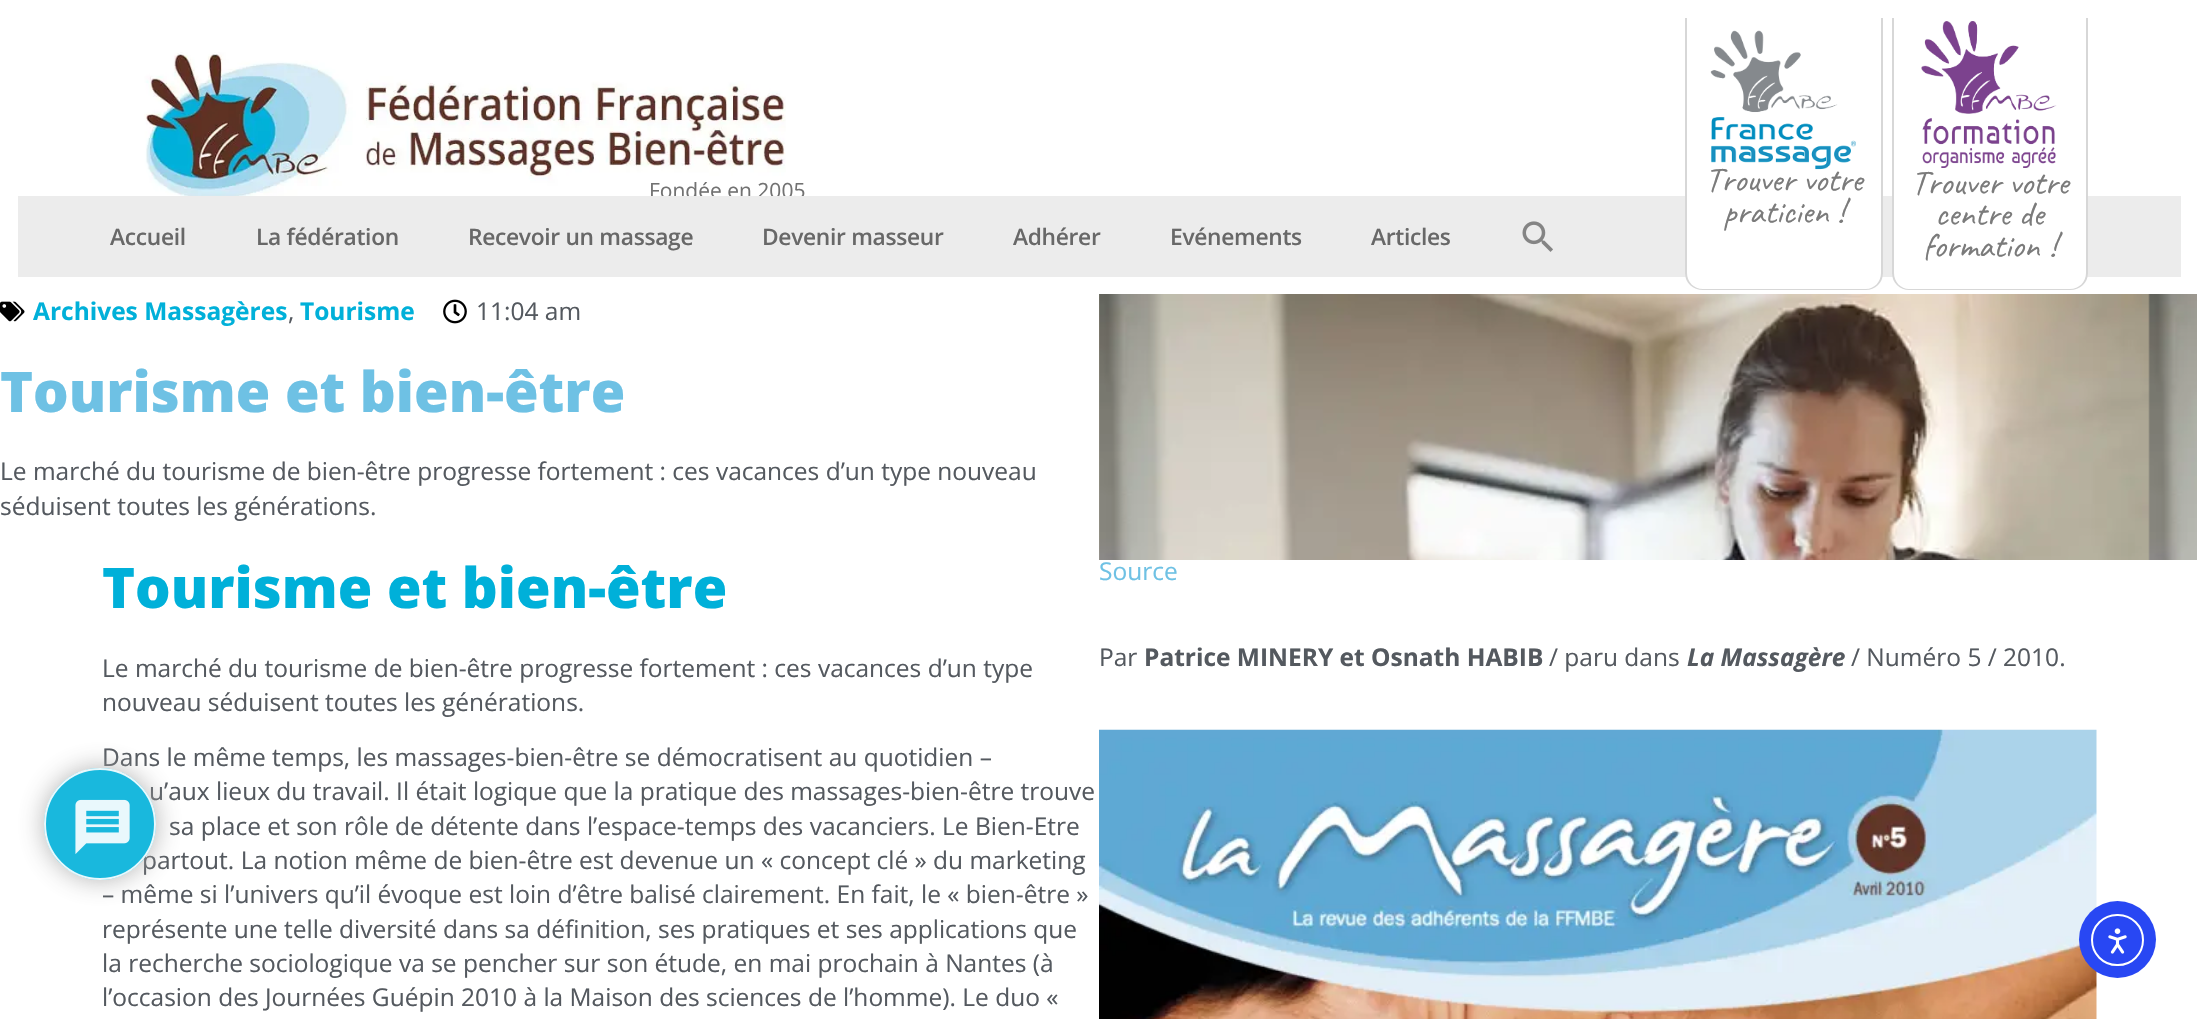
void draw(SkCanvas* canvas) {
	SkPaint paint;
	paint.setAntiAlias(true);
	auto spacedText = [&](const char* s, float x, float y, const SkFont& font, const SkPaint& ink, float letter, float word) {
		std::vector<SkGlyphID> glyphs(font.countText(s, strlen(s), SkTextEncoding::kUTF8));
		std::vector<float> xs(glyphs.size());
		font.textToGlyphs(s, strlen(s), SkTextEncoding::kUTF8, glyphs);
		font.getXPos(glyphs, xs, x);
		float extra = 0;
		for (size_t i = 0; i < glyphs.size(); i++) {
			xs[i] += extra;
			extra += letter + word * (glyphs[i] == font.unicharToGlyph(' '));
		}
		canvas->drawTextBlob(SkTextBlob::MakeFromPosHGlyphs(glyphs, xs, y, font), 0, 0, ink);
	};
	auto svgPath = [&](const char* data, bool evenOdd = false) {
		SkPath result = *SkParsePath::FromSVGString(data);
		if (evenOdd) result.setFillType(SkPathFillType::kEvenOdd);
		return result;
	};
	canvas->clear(0xffffffff);
	canvas->drawImageRect(SkImages::DeferredFromEncodedData(SkData::MakeFromFileName("img1.png")), SkRect::MakeXYWH(144, 52, 642, 144), SkSamplingOptions());
	SkFont f1(fontMgr->matchFamilyStyle("Open Sans", SkFontStyle::Normal()), 21);
	f1.setSubpixel(true);
	paint.setColor(0xff727272);
	canvas->drawString("Fondée en 2005", 649, 198, f1, paint);
	paint.setColor(0xffececec);
	canvas->drawRect(SkRect::MakeXYWH(18, 196, 2163, 81), paint);
	paint.setColor(0xffffffff);
	canvas->drawPath(svgPath("M1685 18H1883V273C1883 283 1875 291 1865 291H1703C1693 291 1685 283 1685 273Z"), paint);
	paint.setColor(0x36414141);
	canvas->drawPath(svgPath("M1685 18H1883V273C1883 283 1875 290 1866 290H1703C1693 290 1685 283 1685 273ZM1687 18H1881V273C1881 282 1874 289 1866 289H1703C1694 289 1687 282 1687 273Z", true), paint);
	canvas->drawImageRect(SkImages::DeferredFromEncodedData(SkData::MakeFromFileName("img2.png")), SkRect::MakeXYWH(1710, 30, 146, 140), SkSamplingOptions());
	SkFont f2(fontMgr->matchFamilyStyle("Caveat", SkFontStyle::Normal()), 35);
	f2.setSubpixel(true);
	paint.setColor(0xff7b7b7b);
	canvas->drawString("Trouver votre", 1705, 191, f2, paint);
	canvas->drawString("praticien !", 1723, 223, f2, paint);
	paint.setColor(0xffffffff);
	canvas->drawPath(svgPath("M1892 18H2088V273C2088 283 2080 291 2070 291H1910C1900 291 1892 283 1892 273Z"), paint);
	paint.setColor(0x36414141);
	canvas->drawPath(svgPath("M1892 18H2088V273C2088 283 2080 290 2070 290H1909C1900 290 1892 283 1892 273ZM1894 18H2086V273C2086 282 2079 289 2070 289H1909C1901 289 1894 282 1894 273Z", true), paint);
	canvas->drawImageRect(SkImages::DeferredFromEncodedData(SkData::MakeFromFileName("img3.png")), SkRect::MakeXYWH(1921, 21, 136, 147), SkSamplingOptions());
	paint.setColor(0xff7b7b7b);
	canvas->drawString("Trouver votre", 1911, 194, f2, paint);
	canvas->drawString("centre de", 1935, 225, f2, paint);
	spacedText("formation !", 1923, 257, f2, paint, 0, 1);
	SkFont f3(fontMgr->matchFamilyStyle("Open Sans", SkFontStyle(600, SkFontStyle::kNormal_Width, SkFontStyle::kUpright_Slant)), 22.75);
	f3.setSubpixel(true);
	paint.setColor(0xff686868);
	spacedText("Accueil", 110, 245, f3, paint, -0.3, 0);
	spacedText("La fédération", 256, 245, f3, paint, -0.3, 0);
	spacedText("Recevoir un massage", 468, 245, f3, paint, -0.3, 0);
	spacedText("Devenir masseur", 762, 245, f3, paint, -0.3, 0);
	spacedText("Adhérer", 1013, 245, f3, paint, -0.3, 0);
	spacedText("Evénements", 1170, 245, f3, paint, -0.3, 0);
	spacedText("Articles", 1371, 245, f3, paint, -0.3, 0);
	canvas->drawImageRect(SkImages::DeferredFromEncodedData(SkData::MakeFromFileName("img4.png")), SkRect::MakeXYWH(1522, 221, 31, 31), SkSamplingOptions());
	canvas->drawImageRect(SkImages::DeferredFromEncodedData(SkData::MakeFromFileName("img5.png")), SkRect::MakeXYWH(0, 301, 25, 21), SkSamplingOptions());
	SkFont f4(fontMgr->matchFamilyStyle("Open Sans", SkFontStyle::Bold()), 24.5);
	f4.setSubpixel(true);
	paint.setColor(0xff00b0d9);
	canvas->drawString("Archives Massagères", 33, 320, f4, paint);
	SkFont f5(fontMgr->matchFamilyStyle("Open Sans", SkFontStyle::Normal()), 24.5);
	f5.setSubpixel(true);
	paint.setColor(0xff54595f);
	canvas->drawString(",", 288, 320, f5, paint);
	paint.setColor(0xff00b0d9);
	canvas->drawString("Tourisme", 300, 320, f4, paint);
	canvas->drawImageRect(SkImages::DeferredFromEncodedData(SkData::MakeFromFileName("img6.png")), SkRect::MakeXYWH(443, 299, 24, 25), SkSamplingOptions());
	paint.setColor(0xff54595f);
	canvas->drawString("11:04 am", 476, 320, f5, paint);
	SkFont f6(fontMgr->matchFamilyStyle("Open Sans", SkFontStyle(800, SkFontStyle::kNormal_Width, SkFontStyle::kUpright_Slant)), 56);
	f6.setSubpixel(true);
	paint.setColor(0xff6ec1e4);
	canvas->drawString("Tourisme et bien-être", 0, 412, f6, paint);
	paint.setColor(0xff54595f);
	canvas->drawString("Le marché du tourisme de bien-être progresse fortement : ces vacances d’un type nouveau", 0, 480, f5, paint);
	canvas->drawString("séduisent toutes les générations.", 0, 515, f5, paint);
	canvas->drawImageRect(SkImages::DeferredFromEncodedData(SkData::MakeFromFileName("img7.png")), SkRect::MakeXYWH(1099, 294, 1098, 266), SkSamplingOptions());
	paint.setColor(0xff00b0d9);
	canvas->drawString("Tourisme et bien-être", 102, 608, f6, paint);
	paint.setColor(0xff54595f);
	canvas->drawString("Le marché du tourisme de bien-être progresse fortement : ces vacances d’un type", 102, 677, f5, paint);
	canvas->drawString("nouveau séduisent toutes les générations.", 102, 711, f5, paint);
	canvas->drawString("Dans le même temps, les massages-bien-être se démocratisent au quotidien –", 102, 766, f5, paint);
	canvas->drawString("u’aux lieux du travail. Il était logique que la pratique des massages-bien-être trouve", 149, 800, f5, paint);
	canvas->drawString("sa place et son rôle de détente dans l’espace-temps des vacanciers. Le Bien-Etre", 169, 835, f5, paint);
	canvas->drawString("partout. La notion même de bien-être est devenue un « concept clé » du marketing", 142, 869, f5, paint);
	canvas->drawString("– même si l’univers qu’il évoque est loin d’être balisé clairement. En fait, le « bien-être »", 102, 903, f5, paint);
	canvas->drawString("représente une telle diversité dans sa définition, ses pratiques et ses applications que", 102, 938, f5, paint);
	canvas->drawString("la recherche sociologique va se pencher sur son étude, en mai prochain à Nantes (à", 102, 972, f5, paint);
	canvas->drawString("l’occasion des Journées Guépin 2010 à la Maison des sciences de l’homme). Le duo «", 102, 1006, f5, paint);
	paint.setColor(0xff6ec1e4);
	canvas->drawString("Source", 1099, 580, f5, paint);
	paint.setColor(0xff54595f);
	canvas->drawString("Par", 1099, 666, f5, paint);
	canvas->drawString("Patrice MINERY et Osnath HABIB", 1144, 666, f4, paint);
	canvas->drawString("/ paru dans", 1549, 666, f5, paint);
	SkFont f7(fontMgr->matchFamilyStyle("Open Sans", SkFontStyle::BoldItalic()), 24.5);
	f7.setSubpixel(true);
	canvas->drawString("La Massagère", 1687, 666, f7, paint);
	canvas->drawString("/ Numéro 5 / 2010.", 1851, 666, f5, paint);
	canvas->drawImageRect(SkImages::DeferredFromEncodedData(SkData::MakeFromFileName("img8.png")), SkRect::MakeXYWH(1099, 729, 998, 290), SkSamplingOptions());
	canvas->save();
	canvas->clipPath(svgPath("M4 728H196V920H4ZM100 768C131 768 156 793 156 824C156 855 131 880 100 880C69 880 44 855 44 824C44 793 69 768 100 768Z", true), true);
	paint.setColor(0xe6aaaaaa);
	paint.setMaskFilter(SkMaskFilter::MakeBlur(kNormal_SkBlurStyle, 13));
	canvas->drawRoundRect(SkRect::MakeXYWH(44, 768, 112, 112), 56, 56, paint);
	paint.setMaskFilter(nullptr);
	canvas->restore();
	paint.setColor(0xe600b0d9);
	canvas->drawCircle(100, 824, 56, paint);
	paint.setStroke(true);
	paint.setStrokeWidth(2);
	paint.setColor(0xe6ffffff);
	canvas->drawCircle(100, 824, 55, paint);
	canvas->drawImageRect(SkImages::DeferredFromEncodedData(SkData::MakeFromFileName("img9.png")), SkRect::MakeXYWH(75, 799, 55, 55), SkSamplingOptions());
	paint.setStroke(false);
	paint.setColor(0xff2847f3);
	canvas->drawCircle(2117.5, 939.5, 38.5, paint);
	paint.setStroke(true);
	paint.setColor(0xffffffff);
	canvas->drawRoundRect(SkRect::MakeXYWH(2092, 915, 51, 50), 25, 25, paint);
	canvas->drawImageRect(SkImages::DeferredFromEncodedData(SkData::MakeFromFileName("img10.png")), SkRect::MakeXYWH(2108, 928, 19, 26), SkSamplingOptions());
}
